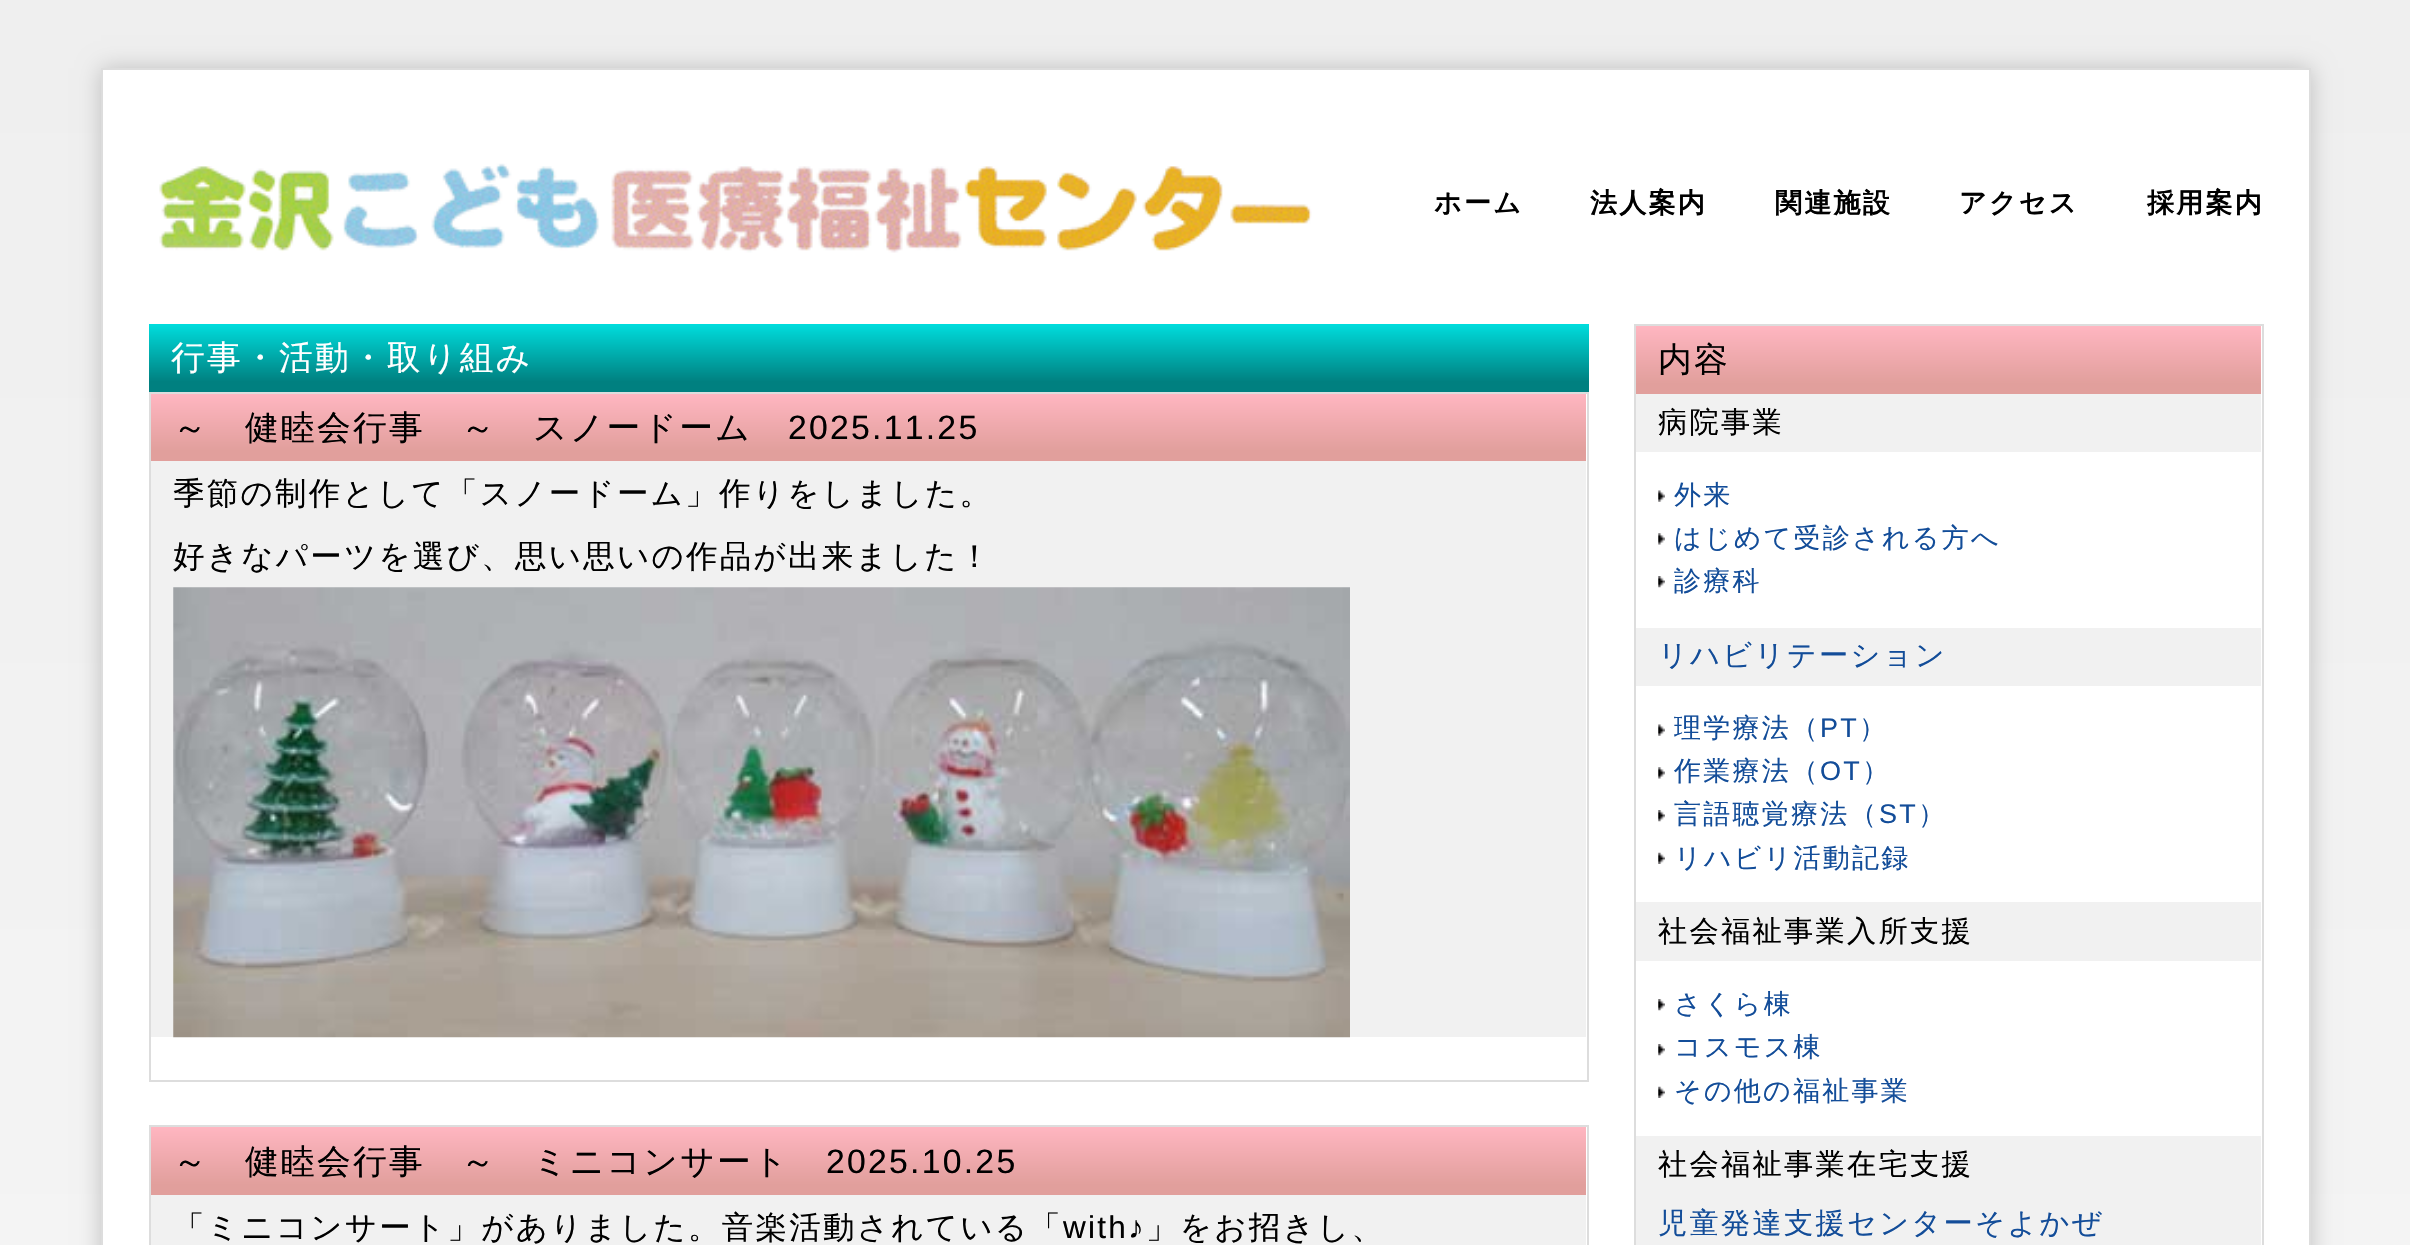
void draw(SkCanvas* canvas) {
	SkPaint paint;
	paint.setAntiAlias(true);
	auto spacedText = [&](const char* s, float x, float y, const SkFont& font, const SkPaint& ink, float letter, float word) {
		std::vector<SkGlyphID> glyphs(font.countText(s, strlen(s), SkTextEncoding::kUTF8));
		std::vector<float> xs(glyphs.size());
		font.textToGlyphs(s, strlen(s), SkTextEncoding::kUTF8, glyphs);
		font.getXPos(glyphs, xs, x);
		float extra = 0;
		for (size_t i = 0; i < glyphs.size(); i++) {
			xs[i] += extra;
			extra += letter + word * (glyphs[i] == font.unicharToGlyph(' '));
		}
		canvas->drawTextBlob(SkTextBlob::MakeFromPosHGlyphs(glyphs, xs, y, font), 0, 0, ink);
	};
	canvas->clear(0xffffffff);
	{
		const SkColor colors[] = {0xffefefef, 0xffffffff};
		const float stops[] = {0, 0.8};
		const SkPoint ends[] = {{1206, 0}, {1206, 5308}};
		paint.setShader(SkGradientShader::MakeLinear(ends, colors, stops, 2, SkTileMode::kClamp));
		paint.setAlpha(255);
	}
	canvas->drawRect(SkRect::MakeXYWH(0, 0, 2410, 1245), paint);
	paint.setShader(nullptr);
	paint.setColor(0xffbfbfbf);
	paint.setMaskFilter(SkMaskFilter::MakeBlur(kNormal_SkBlurStyle, 11));
	canvas->drawRect(SkRect::MakeXYWH(101, 68, 2210, 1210), paint);
	paint.setMaskFilter(nullptr);
	paint.setColor(0xffffffff);
	canvas->drawRect(SkRect::MakeXYWH(102, 69, 2208, 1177), paint);
	paint.setStroke(true);
	paint.setStrokeWidth(2);
	paint.setColor(0xffdddddd);
	canvas->drawRect(SkRect::MakeXYWH(102, 69, 2208, 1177), paint);
	canvas->drawImageRect(SkImages::DeferredFromEncodedData(SkData::MakeFromFileName("img1.png")), SkRect::MakeXYWH(159, 163, 1153, 90), SkSamplingOptions());
	SkFont f1(fontMgr->matchFamilyStyle("WenQuanYi Zen Hei", SkFontStyle::Bold()), 27);
	f1.setSubpixel(true);
	paint.setStroke(false);
	paint.setColor(0xff000000);
	spacedText("ホーム", 1434, 212, f1, paint, 2.25, 0);
	spacedText("法人案内", 1590, 212, f1, paint, 2.25, 0);
	spacedText("関連施設", 1775, 212, f1, paint, 2.25, 0);
	spacedText("アクセス", 1959, 212, f1, paint, 2.25, 0);
	spacedText("採用案内", 2147, 212, f1, paint, 2.25, 0);
	{
		const SkColor colors[] = {0xff00dddd, 0xff008080};
		const float stops[] = {0, 0.85};
		const SkPoint ends[] = {{869, 324}, {869, 392}};
		paint.setShader(SkGradientShader::MakeLinear(ends, colors, stops, 2, SkTileMode::kClamp));
		paint.setAlpha(255);
	}
	canvas->drawRect(SkRect::MakeXYWH(149, 324, 1440, 68), paint);
	SkFont f2(fontMgr->matchFamilyStyle("WenQuanYi Zen Hei", SkFontStyle(500, SkFontStyle::kNormal_Width, SkFontStyle::kUpright_Slant)), 33.75);
	f2.setSubpixel(true);
	paint.setShader(nullptr);
	paint.setColor(0xffffffff);
	spacedText("行事・活動・取り組み", 171, 369, f2, paint, 2.25, 0);
	paint.setStroke(true);
	paint.setColor(0xffdddddd);
	canvas->drawRect(SkRect::MakeXYWH(150, 393, 1438, 688), paint);
	paint.setStroke(false);
	{
		const SkColor colors[] = {0xffffb6c1, 0xffe19f9c};
		const float stops[] = {0, 0.85};
		const SkPoint ends[] = {{869, 394}, {869, 461}};
		paint.setShader(SkGradientShader::MakeLinear(ends, colors, stops, 2, SkTileMode::kClamp));
		paint.setAlpha(255);
	}
	canvas->drawRect(SkRect::MakeXYWH(151, 394, 1435, 67), paint);
	paint.setShader(nullptr);
	paint.setColor(0xff000000);
	spacedText("～　健睦会行事　～　スノードーム", 173, 439, f2, paint, 2.25, 0);
	SkFont f3(fontMgr->matchFamilyStyle("Liberation Sans", SkFontStyle::Normal()), 33.75);
	f3.setSubpixel(true);
	spacedText("2025.11.25", 788, 439, f3, paint, 2.25, 0);
	paint.setColor(0xfff1f1f1);
	canvas->drawRect(SkRect::MakeXYWH(151, 461, 1435, 576), paint);
	SkFont f4(fontMgr->matchFamilyStyle("WenQuanYi Zen Hei", SkFontStyle(500, SkFontStyle::kNormal_Width, SkFontStyle::kUpright_Slant)), 31.5);
	f4.setSubpixel(true);
	paint.setColor(0xff000000);
	spacedText("季節の制作として「スノードーム」作りをしました。", 173, 504, f4, paint, 2.25, 0);
	spacedText("好きなパーツを選び、思い思いの作品が出来ました！", 173, 567, f4, paint, 2.25, 0);
	canvas->drawImageRect(SkImages::DeferredFromEncodedData(SkData::MakeFromFileName("img2.png")), SkRect::MakeXYWH(173, 587, 1177, 451), SkSamplingOptions());
	paint.setStroke(true);
	paint.setColor(0xffdddddd);
	canvas->drawRect(SkRect::MakeXYWH(150, 1126, 1438, 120), paint);
	paint.setStroke(false);
	{
		const SkColor colors[] = {0xffffb6c1, 0xffe19f9c};
		const float stops[] = {0, 0.85};
		const SkPoint ends[] = {{869, 1127}, {869, 1195}};
		paint.setShader(SkGradientShader::MakeLinear(ends, colors, stops, 2, SkTileMode::kClamp));
		paint.setAlpha(255);
	}
	canvas->drawRect(SkRect::MakeXYWH(151, 1127, 1435, 68), paint);
	paint.setShader(nullptr);
	paint.setColor(0xff000000);
	spacedText("～　健睦会行事　～　ミニコンサート", 173, 1173, f2, paint, 2.25, 0);
	spacedText("2025.10.25", 826, 1173, f3, paint, 2.25, 0);
	paint.setColor(0xfff1f1f1);
	canvas->drawRect(SkRect::MakeXYWH(151, 1195, 1435, 50), paint);
	paint.setColor(0xff000000);
	spacedText("「ミニコンサート」がありました。音楽活動されている「", 173, 1238, f4, paint, 2.25, 0);
	SkFont f5(fontMgr->matchFamilyStyle("Liberation Sans", SkFontStyle::Normal()), 31.5);
	f5.setSubpixel(true);
	spacedText("with♪", 1063, 1238, f5, paint, 2.25, 0);
	spacedText("」をお招きし、", 1146, 1238, f4, paint, 2.25, 0);
	paint.setStroke(true);
	paint.setColor(0xffdddddd);
	canvas->drawRect(SkRect::MakeXYWH(1635, 325, 628, 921), paint);
	paint.setStroke(false);
	{
		const SkColor colors[] = {0xffffb6c1, 0xffe19f9c};
		const float stops[] = {0, 0.85};
		const SkPoint ends[] = {{1949, 326}, {1949, 394}};
		paint.setShader(SkGradientShader::MakeLinear(ends, colors, stops, 2, SkTileMode::kClamp));
		paint.setAlpha(255);
	}
	canvas->drawRect(SkRect::MakeXYWH(1636, 326, 625, 68), paint);
	paint.setShader(nullptr);
	paint.setColor(0xff000000);
	spacedText("内容", 1658, 371, f2, paint, 2.25, 0);
	paint.setColor(0xfff1f1f1);
	canvas->drawRect(SkRect::MakeXYWH(1636, 394, 625, 58), paint);
	SkFont f6(fontMgr->matchFamilyStyle("WenQuanYi Zen Hei", SkFontStyle(500, SkFontStyle::kNormal_Width, SkFontStyle::kUpright_Slant)), 29.25);
	f6.setSubpixel(true);
	paint.setColor(0xff000000);
	spacedText("病院事業", 1658, 432, f6, paint, 2.25, 0);
	canvas->drawImageRect(SkImages::DeferredFromEncodedData(SkData::MakeFromFileName("img3.png")), SkRect::MakeXYWH(1658, 490, 7, 12), SkSamplingOptions());
	SkFont f7(fontMgr->matchFamilyStyle("WenQuanYi Zen Hei", SkFontStyle(500, SkFontStyle::kNormal_Width, SkFontStyle::kUpright_Slant)), 27);
	f7.setSubpixel(true);
	paint.setColor(0xff134d99);
	spacedText("外来", 1674, 504, f7, paint, 2.25, 0);
	canvas->drawImageRect(SkImages::DeferredFromEncodedData(SkData::MakeFromFileName("img4.png")), SkRect::MakeXYWH(1658, 533, 7, 12), SkSamplingOptions());
	spacedText("はじめて受診される方へ", 1674, 547, f7, paint, 2.25, 0);
	canvas->drawImageRect(SkImages::DeferredFromEncodedData(SkData::MakeFromFileName("img5.png")), SkRect::MakeXYWH(1658, 576, 7, 12), SkSamplingOptions());
	spacedText("診療科", 1674, 590, f7, paint, 2.25, 0);
	paint.setColor(0xfff1f1f1);
	canvas->drawRect(SkRect::MakeXYWH(1636, 628, 625, 58), paint);
	paint.setColor(0xff134d99);
	spacedText("リハビリテーション", 1658, 665, f6, paint, 2.25, 0);
	canvas->drawImageRect(SkImages::DeferredFromEncodedData(SkData::MakeFromFileName("img3.png")), SkRect::MakeXYWH(1658, 724, 7, 12), SkSamplingOptions());
	spacedText("理学療法（", 1674, 737, f7, paint, 2.25, 0);
	SkFont f8(fontMgr->matchFamilyStyle("Liberation Sans", SkFontStyle::Normal()), 27);
	f8.setSubpixel(true);
	spacedText("PT", 1820, 737, f8, paint, 2.25, 0);
	spacedText("）", 1859, 737, f7, paint, 2.25, 0);
	canvas->drawImageRect(SkImages::DeferredFromEncodedData(SkData::MakeFromFileName("img4.png")), SkRect::MakeXYWH(1658, 767, 7, 12), SkSamplingOptions());
	spacedText("作業療法（", 1674, 780, f7, paint, 2.25, 0);
	spacedText("OT", 1820, 780, f8, paint, 2.25, 0);
	spacedText("）", 1862, 780, f7, paint, 2.25, 0);
	canvas->drawImageRect(SkImages::DeferredFromEncodedData(SkData::MakeFromFileName("img6.png")), SkRect::MakeXYWH(1658, 810, 7, 12), SkSamplingOptions());
	spacedText("言語聴覚療法（", 1674, 823, f7, paint, 2.25, 0);
	spacedText("ST", 1879, 823, f8, paint, 2.25, 0);
	spacedText("）", 1918, 823, f7, paint, 2.25, 0);
	canvas->drawImageRect(SkImages::DeferredFromEncodedData(SkData::MakeFromFileName("img7.png")), SkRect::MakeXYWH(1658, 852, 7, 12), SkSamplingOptions());
	spacedText("リハビリ活動記録", 1674, 867, f7, paint, 2.25, 0);
	paint.setColor(0xfff1f1f1);
	canvas->drawRect(SkRect::MakeXYWH(1636, 902, 625, 59), paint);
	paint.setColor(0xff000000);
	spacedText("社会福祉事業入所支援", 1658, 941, f6, paint, 2.25, 0);
	canvas->drawImageRect(SkImages::DeferredFromEncodedData(SkData::MakeFromFileName("img6.png")), SkRect::MakeXYWH(1658, 999, 7, 12), SkSamplingOptions());
	paint.setColor(0xff134d99);
	spacedText("さくら棟", 1674, 1013, f7, paint, 2.25, 0);
	canvas->drawImageRect(SkImages::DeferredFromEncodedData(SkData::MakeFromFileName("img6.png")), SkRect::MakeXYWH(1658, 1044, 7, 12), SkSamplingOptions());
	spacedText("コスモス棟", 1674, 1056, f7, paint, 2.25, 0);
	canvas->drawImageRect(SkImages::DeferredFromEncodedData(SkData::MakeFromFileName("img7.png")), SkRect::MakeXYWH(1658, 1086, 7, 12), SkSamplingOptions());
	spacedText("その他の福祉事業", 1674, 1100, f7, paint, 2.25, 0);
	paint.setColor(0xfff1f1f1);
	canvas->drawRect(SkRect::MakeXYWH(1636, 1136, 625, 109), paint);
	paint.setColor(0xff000000);
	spacedText("社会福祉事業在宅支援", 1658, 1174, f6, paint, 2.25, 0);
	paint.setColor(0xff134d99);
	spacedText("児童発達支援センターそよかぜ", 1658, 1233, f6, paint, 2.25, 0);
}
